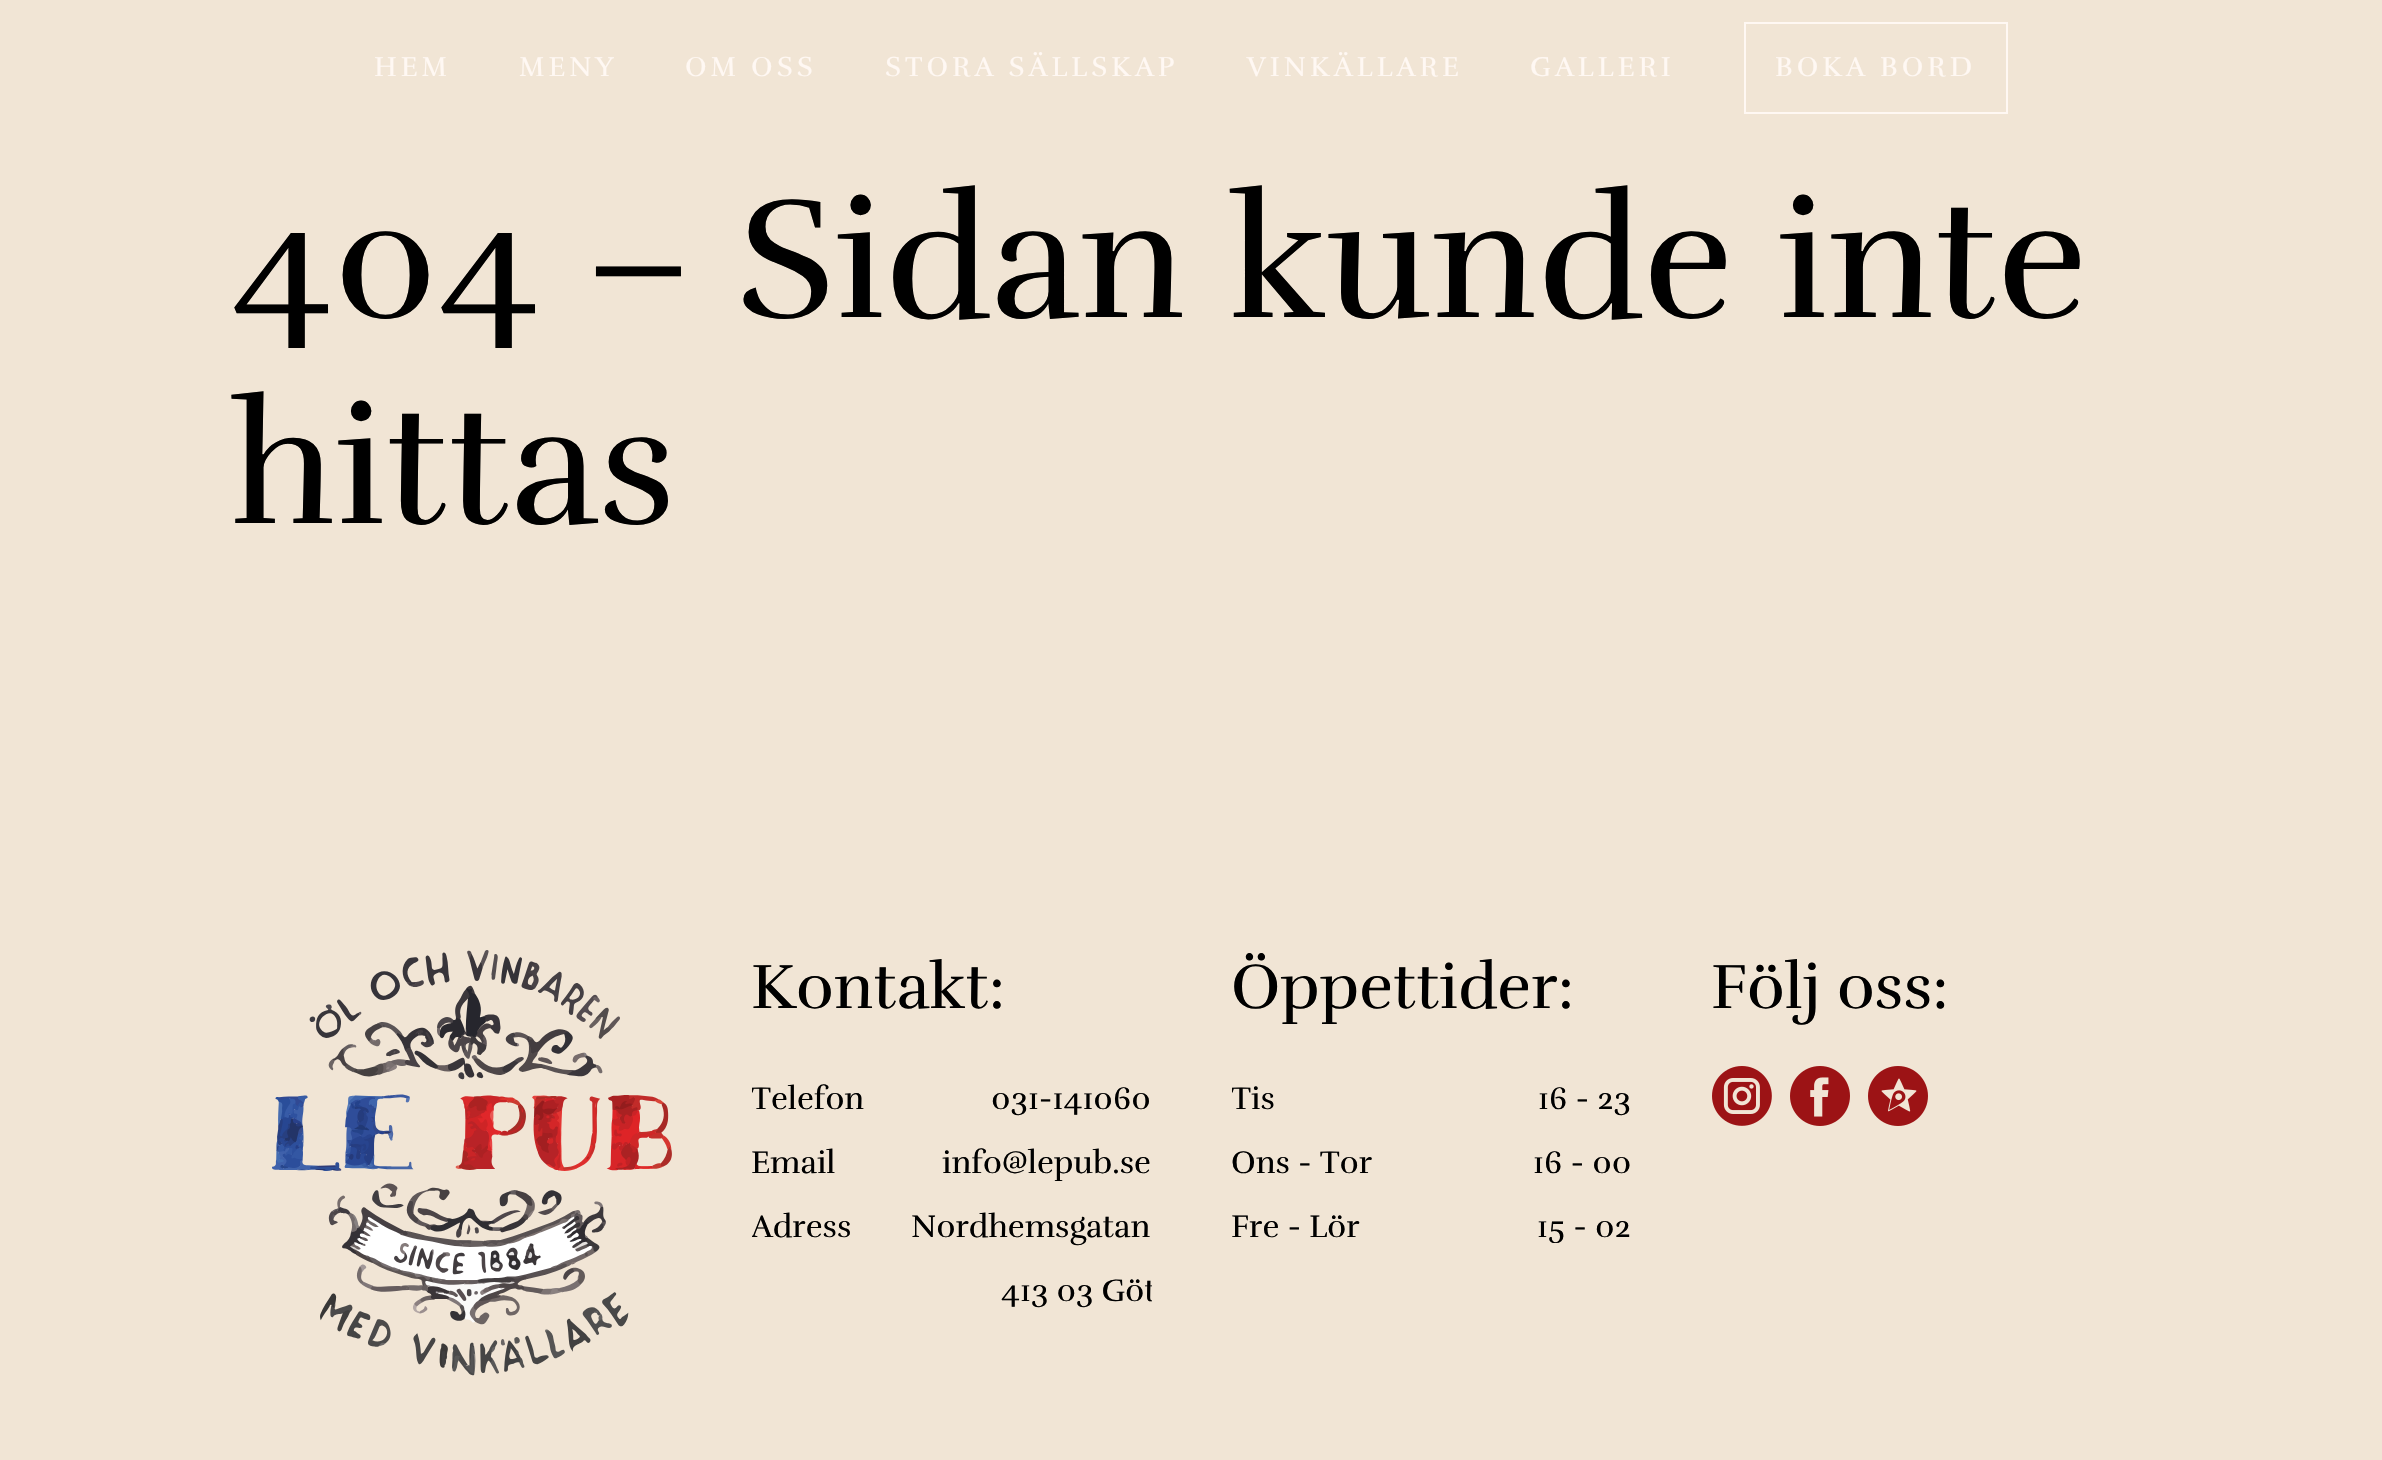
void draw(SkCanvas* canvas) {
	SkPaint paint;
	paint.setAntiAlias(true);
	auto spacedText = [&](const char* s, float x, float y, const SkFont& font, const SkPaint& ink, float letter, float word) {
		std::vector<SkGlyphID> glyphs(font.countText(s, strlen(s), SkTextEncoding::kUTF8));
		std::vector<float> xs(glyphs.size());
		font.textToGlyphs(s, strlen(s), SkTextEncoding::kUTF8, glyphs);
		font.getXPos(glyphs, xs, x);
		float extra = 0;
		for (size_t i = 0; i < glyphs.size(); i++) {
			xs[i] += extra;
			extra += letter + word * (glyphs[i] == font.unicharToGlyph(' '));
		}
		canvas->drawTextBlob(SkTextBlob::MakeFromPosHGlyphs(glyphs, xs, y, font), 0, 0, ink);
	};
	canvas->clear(0xfff1e5d5);
	SkFont f1(fontMgr->matchFamilyStyle("Rufina", SkFontStyle::Normal()), 28);
	f1.setSubpixel(true);
	paint.setColor(0xfffff8f3);
	spacedText("HEM", 374, 76, f1, paint, 4, 0);
	spacedText("MENY", 519, 76, f1, paint, 4, 0);
	spacedText("OM OSS", 685, 76, f1, paint, 4, 0);
	spacedText("STORA SÄLLSKAP", 885, 76, f1, paint, 4, 0);
	spacedText("VINKÄLLARE", 1247, 76, f1, paint, 4, 0);
	spacedText("GALLERI", 1530, 76, f1, paint, 4, 0);
	paint.setStroke(true);
	paint.setStrokeWidth(2);
	canvas->drawRect(SkRect::MakeXYWH(1745, 23, 262, 90), paint);
	paint.setStroke(false);
	spacedText("BOKA BORD", 1775, 76, f1, paint, 4, 0);
	SkFont f2(fontMgr->matchFamilyStyle("Rufina", SkFontStyle::Normal()), 172);
	f2.setSubpixel(true);
	paint.setColor(0xff000000);
	canvas->drawString("404 – Sidan kunde inte", 231, 317, f2, paint);
	canvas->drawString("hittas", 231, 523, f2, paint);
	canvas->drawImageRect(SkImages::DeferredFromEncodedData(SkData::MakeFromFileName("img1.png")), SkRect::MakeXYWH(272, 950, 400, 426), SkSamplingOptions());
	SkFont f3(fontMgr->matchFamilyStyle("Rufina", SkFontStyle::Normal()), 64);
	f3.setSubpixel(true);
	canvas->drawString("Kontakt:", 751, 1008, f3, paint);
	canvas->save();
	canvas->clipRect(SkRect::MakeXYWH(752, 1066, 400, 64));
	SkFont f4(fontMgr->matchFamilyStyle("Rufina", SkFontStyle::Normal()), 32);
	f4.setSubpixel(true);
	canvas->drawString("Telefon", 751, 1109, f4, paint);
	canvas->restore();
	canvas->drawString("031-141060", 991, 1109, f4, paint);
	canvas->drawString("Email", 751, 1173, f4, paint);
	canvas->drawString("info@lepub.se", 942, 1173, f4, paint);
	canvas->save();
	canvas->clipRect(SkRect::MakeXYWH(752, 1194, 400, 128));
	canvas->drawString("Adress", 751, 1237, f4, paint);
	canvas->restore();
	canvas->drawString("Nordhemsgatan", 911, 1237, f4, paint);
	canvas->save();
	canvas->clipRect(SkRect::MakeXYWH(912, 1258, 240, 64));
	canvas->drawString("413 03 Göt", 1001, 1301, f4, paint);
	canvas->restore();
	canvas->drawString("Öppettider:", 1231, 1008, f3, paint);
	canvas->save();
	canvas->clipRect(SkRect::MakeXYWH(1232, 1066, 400, 64));
	canvas->drawString("Tis", 1231, 1109, f4, paint);
	canvas->restore();
	canvas->drawString("16 - 23", 1538, 1109, f4, paint);
	canvas->drawString("Ons - Tor", 1231, 1173, f4, paint);
	canvas->drawString("16 - 00", 1533, 1173, f4, paint);
	canvas->drawString("Fre - Lör", 1231, 1237, f4, paint);
	canvas->drawString("15 - 02", 1537, 1237, f4, paint);
	canvas->drawString("Följ oss:", 1711, 1008, f3, paint);
	canvas->drawImageRect(SkImages::DeferredFromEncodedData(SkData::MakeFromFileName("img2.png")), SkRect::MakeXYWH(1712, 1066, 60, 60), SkSamplingOptions());
	canvas->drawImageRect(SkImages::DeferredFromEncodedData(SkData::MakeFromFileName("img3.png")), SkRect::MakeXYWH(1790, 1066, 60, 60), SkSamplingOptions());
	canvas->drawImageRect(SkImages::DeferredFromEncodedData(SkData::MakeFromFileName("img4.png")), SkRect::MakeXYWH(1868, 1066, 60, 60), SkSamplingOptions());
}
